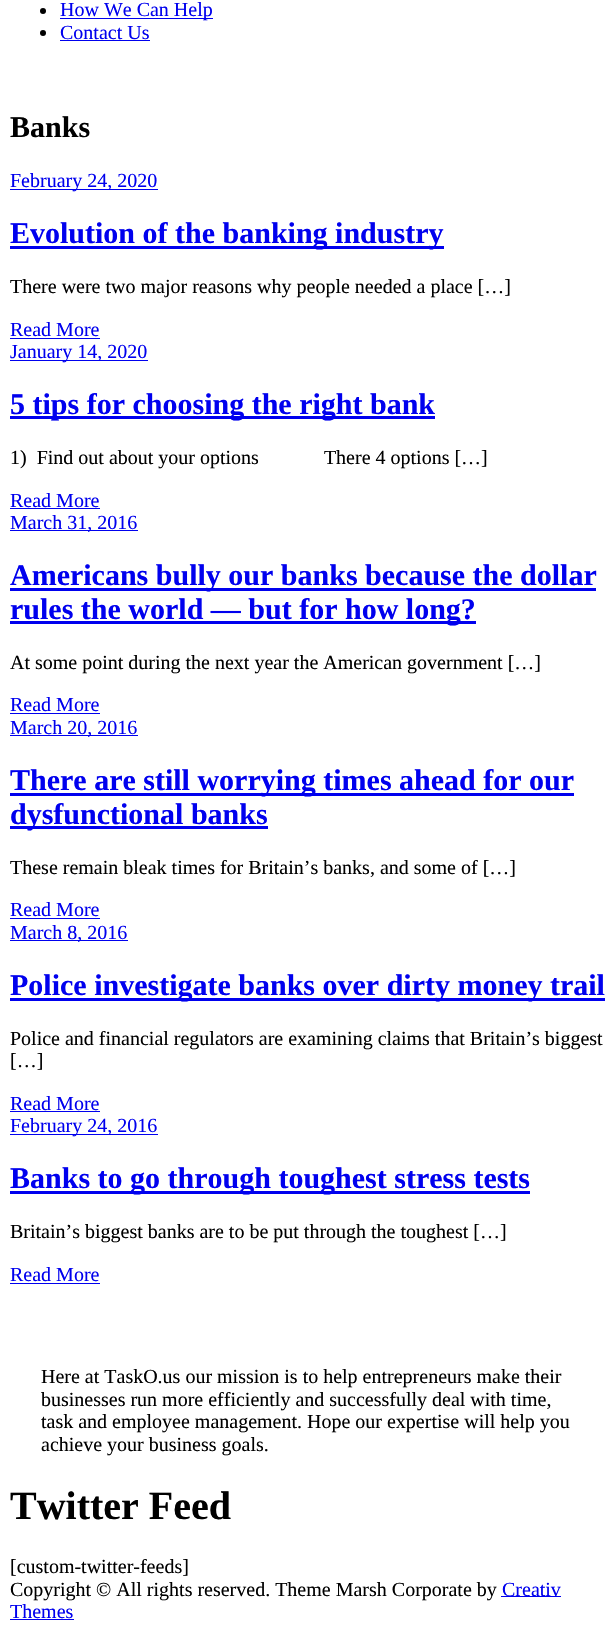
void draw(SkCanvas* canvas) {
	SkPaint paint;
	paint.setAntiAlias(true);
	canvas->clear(0xffffffff);
	paint.setColor(0xff000000);
	canvas->drawCircle(43, 11, 3, paint);
	paint.setColor(0xff0000ee);
	canvas->drawRect(SkRect::MakeXYWH(60, 18, 153, 1), paint);
	SkFont f1(fontMgr->matchFamilyStyle("Liberation Serif", SkFontStyle::Normal()), 20);
	f1.setSubpixel(true);
	canvas->drawString("How We Can Help", 60, 16, f1, paint);
	paint.setColor(0xff000000);
	canvas->drawCircle(43, 33, 3, paint);
	paint.setColor(0xff0000ee);
	canvas->drawString("Contact Us", 60, 39, f1, paint);
	canvas->drawRect(SkRect::MakeXYWH(60, 40, 90, 1), paint);
	SkFont f2(fontMgr->matchFamilyStyle("Liberation Serif", SkFontStyle::Bold()), 30);
	f2.setSubpixel(true);
	paint.setColor(0xff000000);
	canvas->drawString("Banks", 10, 137, f2, paint);
	paint.setColor(0xff0000ee);
	canvas->drawRect(SkRect::MakeXYWH(10, 189, 148, 1), paint);
	canvas->drawString("February 24, 2020", 10, 187, f1, paint);
	canvas->drawRect(SkRect::MakeXYWH(10, 246, 434, 3), paint);
	canvas->drawString("Evolution of the banking industry", 10, 243, f2, paint);
	paint.setColor(0xff000000);
	canvas->drawString("There were two major reasons why people needed a place […]", 10, 293, f1, paint);
	paint.setColor(0xff0000ee);
	canvas->drawString("Read More", 10, 336, f1, paint);
	canvas->drawRect(SkRect::MakeXYWH(10, 338, 90, 1), paint);
	canvas->drawRect(SkRect::MakeXYWH(10, 360, 138, 1), paint);
	canvas->drawString("January 14, 2020", 10, 358, f1, paint);
	canvas->drawRect(SkRect::MakeXYWH(10, 416, 425, 3), paint);
	canvas->drawString("5 tips for choosing the right bank", 10, 414, f2, paint);
	paint.setColor(0xff000000);
	canvas->drawString("1)  Find out about your options             There 4 options […]", 10, 464, f1, paint);
	paint.setColor(0xff0000ee);
	canvas->drawString("Read More", 10, 507, f1, paint);
	canvas->drawRect(SkRect::MakeXYWH(10, 508, 90, 1), paint);
	canvas->drawRect(SkRect::MakeXYWH(10, 530, 128, 1), paint);
	canvas->drawString("March 31, 2016", 10, 529, f1, paint);
	canvas->drawRect(SkRect::MakeXYWH(10, 588, 586, 3), paint);
	canvas->drawString("Americans bully our banks because the dollar", 10, 585, f2, paint);
	canvas->drawRect(SkRect::MakeXYWH(10, 621, 466, 3), paint);
	canvas->drawString("rules the world — but for how long?", 10, 619, f2, paint);
	paint.setColor(0xff000000);
	canvas->drawString("At some point during the next year the American government […]", 10, 669, f1, paint);
	paint.setColor(0xff0000ee);
	canvas->drawString("Read More", 10, 711, f1, paint);
	canvas->drawRect(SkRect::MakeXYWH(10, 713, 90, 1), paint);
	canvas->drawRect(SkRect::MakeXYWH(10, 735, 128, 1), paint);
	canvas->drawString("March 20, 2016", 10, 734, f1, paint);
	canvas->drawRect(SkRect::MakeXYWH(10, 793, 564, 3), paint);
	canvas->drawString("There are still worrying times ahead for our", 10, 790, f2, paint);
	canvas->drawRect(SkRect::MakeXYWH(10, 826, 258, 3), paint);
	canvas->drawString("dysfunctional banks", 10, 824, f2, paint);
	paint.setColor(0xff000000);
	canvas->drawString("These remain bleak times for Britain’s banks, and some of […]", 10, 874, f1, paint);
	paint.setColor(0xff0000ee);
	canvas->drawString("Read More", 10, 916, f1, paint);
	canvas->drawRect(SkRect::MakeXYWH(10, 918, 90, 1), paint);
	canvas->drawRect(SkRect::MakeXYWH(10, 940, 118, 1), paint);
	canvas->drawString("March 8, 2016", 10, 939, f1, paint);
	canvas->drawRect(SkRect::MakeXYWH(10, 998, 595, 3), paint);
	canvas->drawString("Police investigate banks over dirty money trail", 10, 995, f2, paint);
	paint.setColor(0xff000000);
	canvas->drawString("Police and financial regulators are examining claims that Britain’s biggest", 10, 1045, f1, paint);
	canvas->drawString("[…]", 10, 1067, f1, paint);
	paint.setColor(0xff0000ee);
	canvas->drawString("Read More", 10, 1110, f1, paint);
	canvas->drawRect(SkRect::MakeXYWH(10, 1111, 90, 1), paint);
	canvas->drawRect(SkRect::MakeXYWH(10, 1134, 148, 1), paint);
	canvas->drawString("February 24, 2016", 10, 1132, f1, paint);
	canvas->drawRect(SkRect::MakeXYWH(10, 1191, 520, 3), paint);
	canvas->drawString("Banks to go through toughest stress tests", 10, 1188, f2, paint);
	paint.setColor(0xff000000);
	canvas->drawString("Britain’s biggest banks are to be put through the toughest […]", 10, 1238, f1, paint);
	paint.setColor(0xff0000ee);
	canvas->drawString("Read More", 10, 1281, f1, paint);
	canvas->drawRect(SkRect::MakeXYWH(10, 1283, 90, 1), paint);
	paint.setColor(0xff000000);
	canvas->drawString("Here at TaskO.us our mission is to help entrepreneurs make their", 41, 1383, f1, paint);
	canvas->drawString("businesses run more efficiently and successfully deal with time,", 41, 1406, f1, paint);
	canvas->drawString("task and employee management. Hope our expertise will help you", 41, 1428, f1, paint);
	canvas->drawString("achieve your business goals.", 41, 1451, f1, paint);
	SkFont f3(fontMgr->matchFamilyStyle("Liberation Serif", SkFontStyle::Bold()), 40);
	f3.setSubpixel(true);
	canvas->drawString("Twitter Feed", 10, 1519, f3, paint);
	canvas->drawString("[custom-twitter-feeds]", 10, 1573, f1, paint);
	canvas->drawString("Copyright © All rights reserved. Theme Marsh Corporate by", 10, 1596, f1, paint);
	paint.setColor(0xff0000ee);
	canvas->drawRect(SkRect::MakeXYWH(501, 1596, 60, 1), paint);
	canvas->drawString("Creativ", 502, 1596, f1, paint);
	canvas->drawString("Themes", 10, 1618, f1, paint);
	canvas->drawRect(SkRect::MakeXYWH(10, 1619, 64, 1), paint);
}
